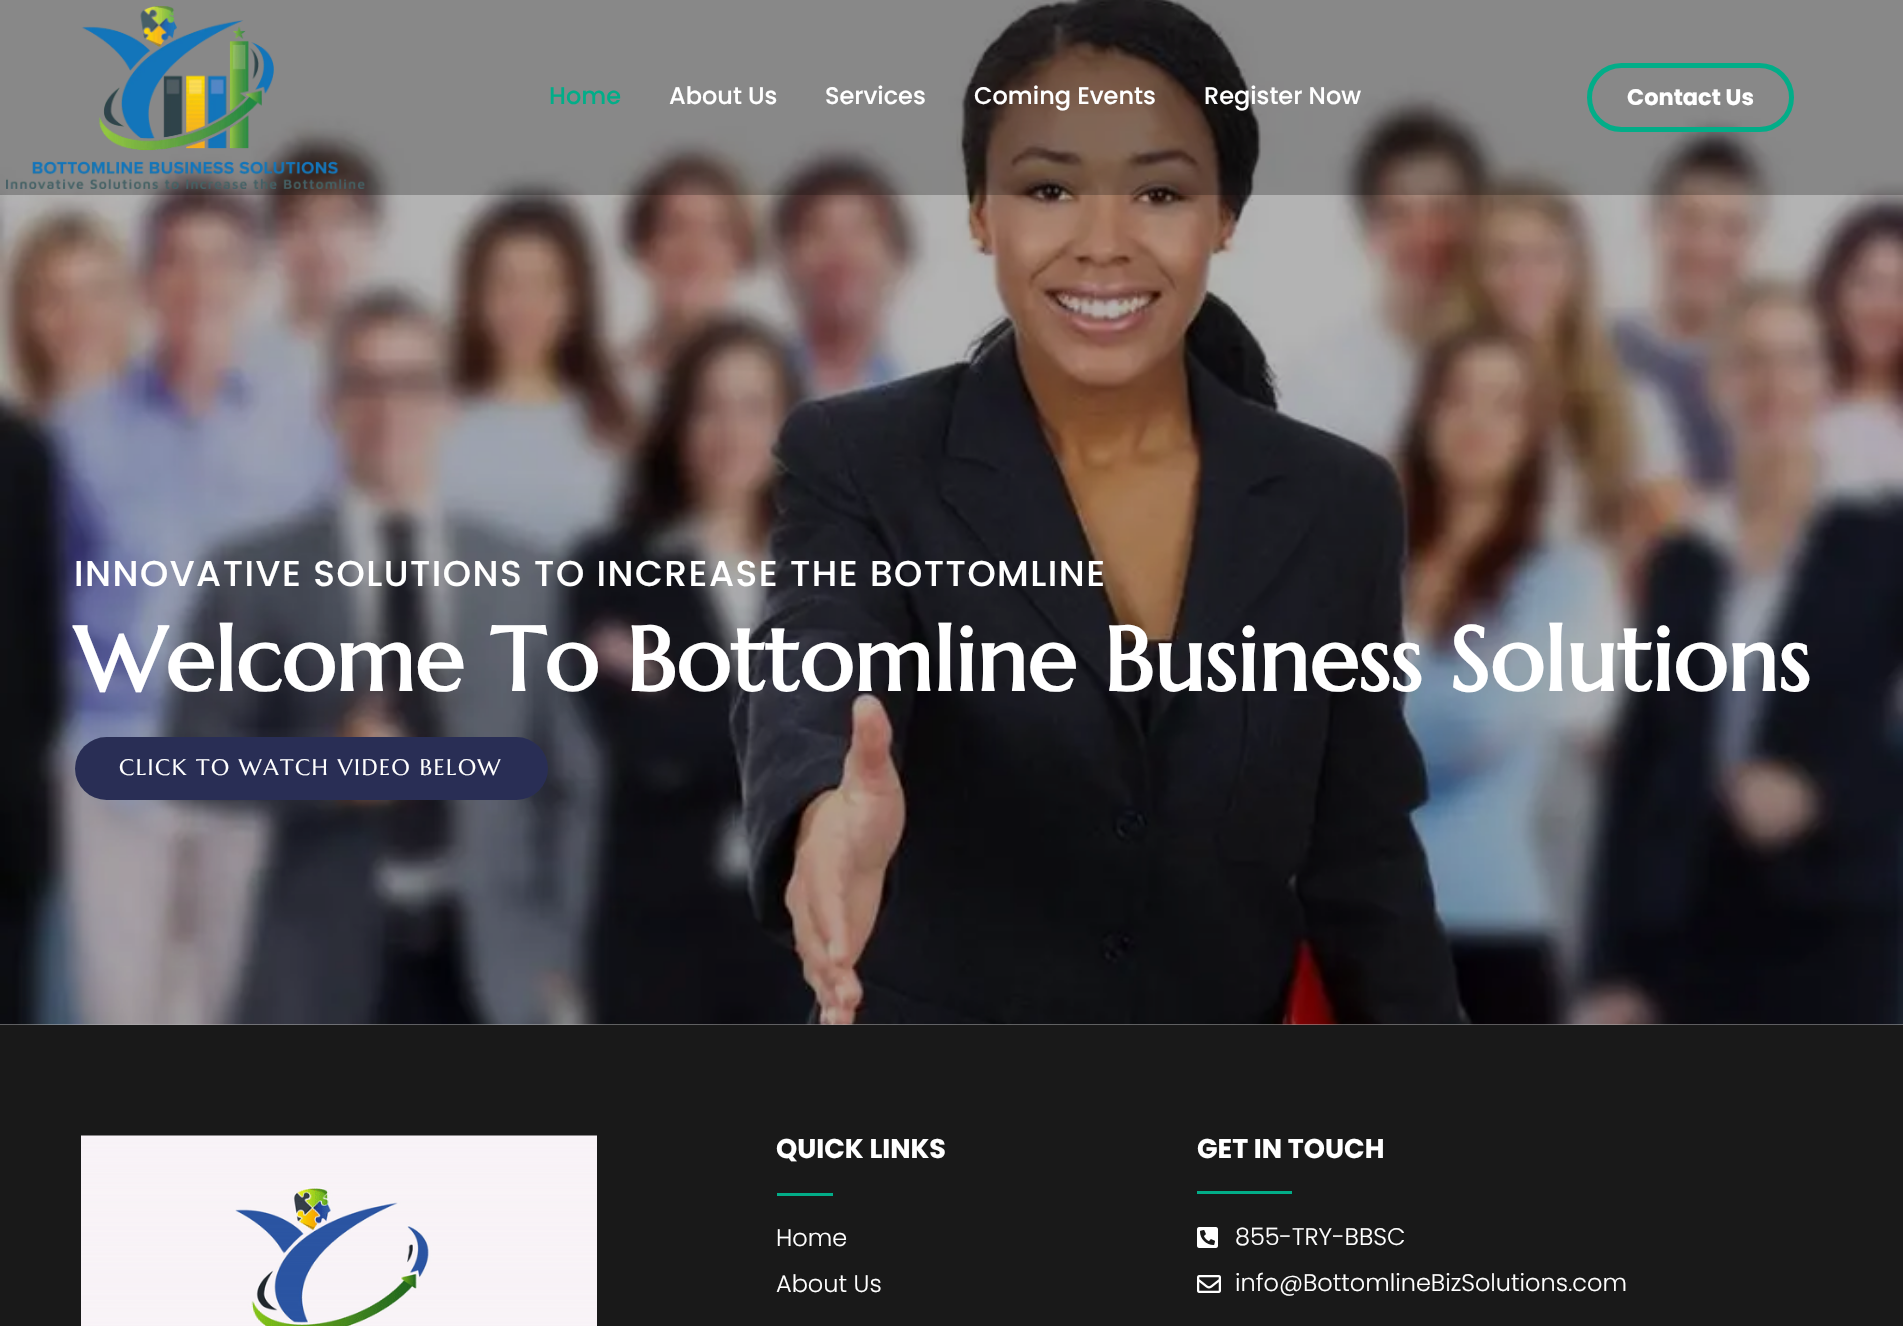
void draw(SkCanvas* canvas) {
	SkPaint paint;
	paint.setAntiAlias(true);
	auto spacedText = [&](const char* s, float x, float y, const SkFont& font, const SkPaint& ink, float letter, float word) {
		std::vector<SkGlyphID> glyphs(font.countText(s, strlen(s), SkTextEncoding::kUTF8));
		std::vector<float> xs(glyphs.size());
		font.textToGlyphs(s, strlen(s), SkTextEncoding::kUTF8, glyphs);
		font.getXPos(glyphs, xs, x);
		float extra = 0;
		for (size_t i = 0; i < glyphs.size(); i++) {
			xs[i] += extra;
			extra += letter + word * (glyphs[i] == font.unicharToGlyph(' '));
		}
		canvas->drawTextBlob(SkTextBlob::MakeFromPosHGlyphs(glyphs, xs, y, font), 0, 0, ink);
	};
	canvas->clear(0xffb3b3b3);
	canvas->drawImageRect(SkImages::DeferredFromEncodedData(SkData::MakeFromFileName("img2.png")), SkRect::MakeXYWH(0, 0, 1903, 1025), SkSamplingOptions());
	paint.setColor(0x3d000000);
	canvas->drawRect(SkRect::MakeXYWH(0, 0, 1903, 195), paint);
	canvas->drawImageRect(SkImages::DeferredFromEncodedData(SkData::MakeFromFileName("img1.png")), SkRect::MakeXYWH(6, 6, 359, 183), SkSamplingOptions());
	SkFont f1(fontMgr->matchFamilyStyle("Poppins", SkFontStyle(500, SkFontStyle::kNormal_Width, SkFontStyle::kUpright_Slant)), 24);
	f1.setSubpixel(true);
	paint.setColor(0xff02ad88);
	canvas->drawString("Home", 549, 104, f1, paint);
	paint.setColor(0xffffffff);
	canvas->drawString("About Us", 669, 104, f1, paint);
	canvas->drawString("Services", 825, 104, f1, paint);
	canvas->drawString("Coming Events", 974, 104, f1, paint);
	canvas->drawString("Register Now", 1204, 104, f1, paint);
	paint.setStroke(true);
	paint.setStrokeWidth(5);
	paint.setColor(0xff02ad88);
	canvas->drawRoundRect(SkRect::MakeXYWH(1589.5, 65.5, 202, 64), 32, 32, paint);
	SkFont f2(fontMgr->matchFamilyStyle("Poppins", SkFontStyle::Bold()), 22.5);
	f2.setSubpixel(true);
	paint.setStroke(false);
	paint.setColor(0xffffffff);
	canvas->drawString("Contact Us", 1627, 105, f2, paint);
	SkFont f3(fontMgr->matchFamilyStyle("Poppins", SkFontStyle(500, SkFontStyle::kNormal_Width, SkFontStyle::kUpright_Slant)), 36);
	f3.setSubpixel(true);
	spacedText("INNOVATIVE SOLUTIONS TO INCREASE THE BOTTOMLINE", 74, 586, f3, paint, 1.5, 0);
	SkFont f4(fontMgr->matchFamilyStyle("Marcellus", SkFontStyle::Bold()), 90);
	f4.setSubpixel(true);
	canvas->drawString("Welcome To Bottomline Business Solutions", 74, 691, f4, paint);
	paint.setColor(0xff292e55);
	canvas->drawRoundRect(SkRect::MakeXYWH(75, 737, 473, 63), 31.5, 31.5, paint);
	SkFont f5(fontMgr->matchFamilyStyle("Marcellus", SkFontStyle::Normal()), 22.5);
	f5.setSubpixel(true);
	paint.setColor(0xffffffff);
	spacedText("CLICK TO WATCH VIDEO BELOW", 119, 775, f5, paint, 1.5, 0);
	paint.setColor(0xff191919);
	canvas->drawRect(SkRect::MakeXYWH(0, 1025, 1903, 301), paint);
	canvas->drawImageRect(SkImages::DeferredFromEncodedData(SkData::MakeFromFileName("img3.png")), SkRect::MakeXYWH(81, 1135, 516, 191), SkSamplingOptions());
	SkFont f6(fontMgr->matchFamilyStyle("Poppins", SkFontStyle::Bold()), 27);
	f6.setSubpixel(true);
	paint.setColor(0xffffffff);
	canvas->drawString("QUICK LINKS", 776, 1158, f6, paint);
	paint.setColor(0xff02ad88);
	canvas->drawRect(SkRect::MakeXYWH(777, 1193, 56, 3), paint);
	SkFont f7(fontMgr->matchFamilyStyle("Poppins", SkFontStyle(300, SkFontStyle::kNormal_Width, SkFontStyle::kUpright_Slant)), 24);
	f7.setSubpixel(true);
	paint.setColor(0xffffffff);
	canvas->drawString("Home", 776, 1246, f7, paint);
	canvas->drawString("About Us", 776, 1292, f7, paint);
	canvas->drawString("GET IN TOUCH", 1197, 1158, f6, paint);
	paint.setColor(0xff02ad88);
	canvas->drawRect(SkRect::MakeXYWH(1197, 1191, 95, 3), paint);
	canvas->drawImageRect(SkImages::DeferredFromEncodedData(SkData::MakeFromFileName("img4.png")), SkRect::MakeXYWH(1197, 1227, 21, 21), SkSamplingOptions());
	paint.setColor(0xffffffff);
	canvas->drawString("855-TRY-BBSC", 1235, 1245, f7, paint);
	canvas->drawImageRect(SkImages::DeferredFromEncodedData(SkData::MakeFromFileName("img5.png")), SkRect::MakeXYWH(1197, 1275, 24, 18), SkSamplingOptions());
	canvas->drawString("info@BottomlineBizSolutions.com", 1235, 1291, f7, paint);
}
